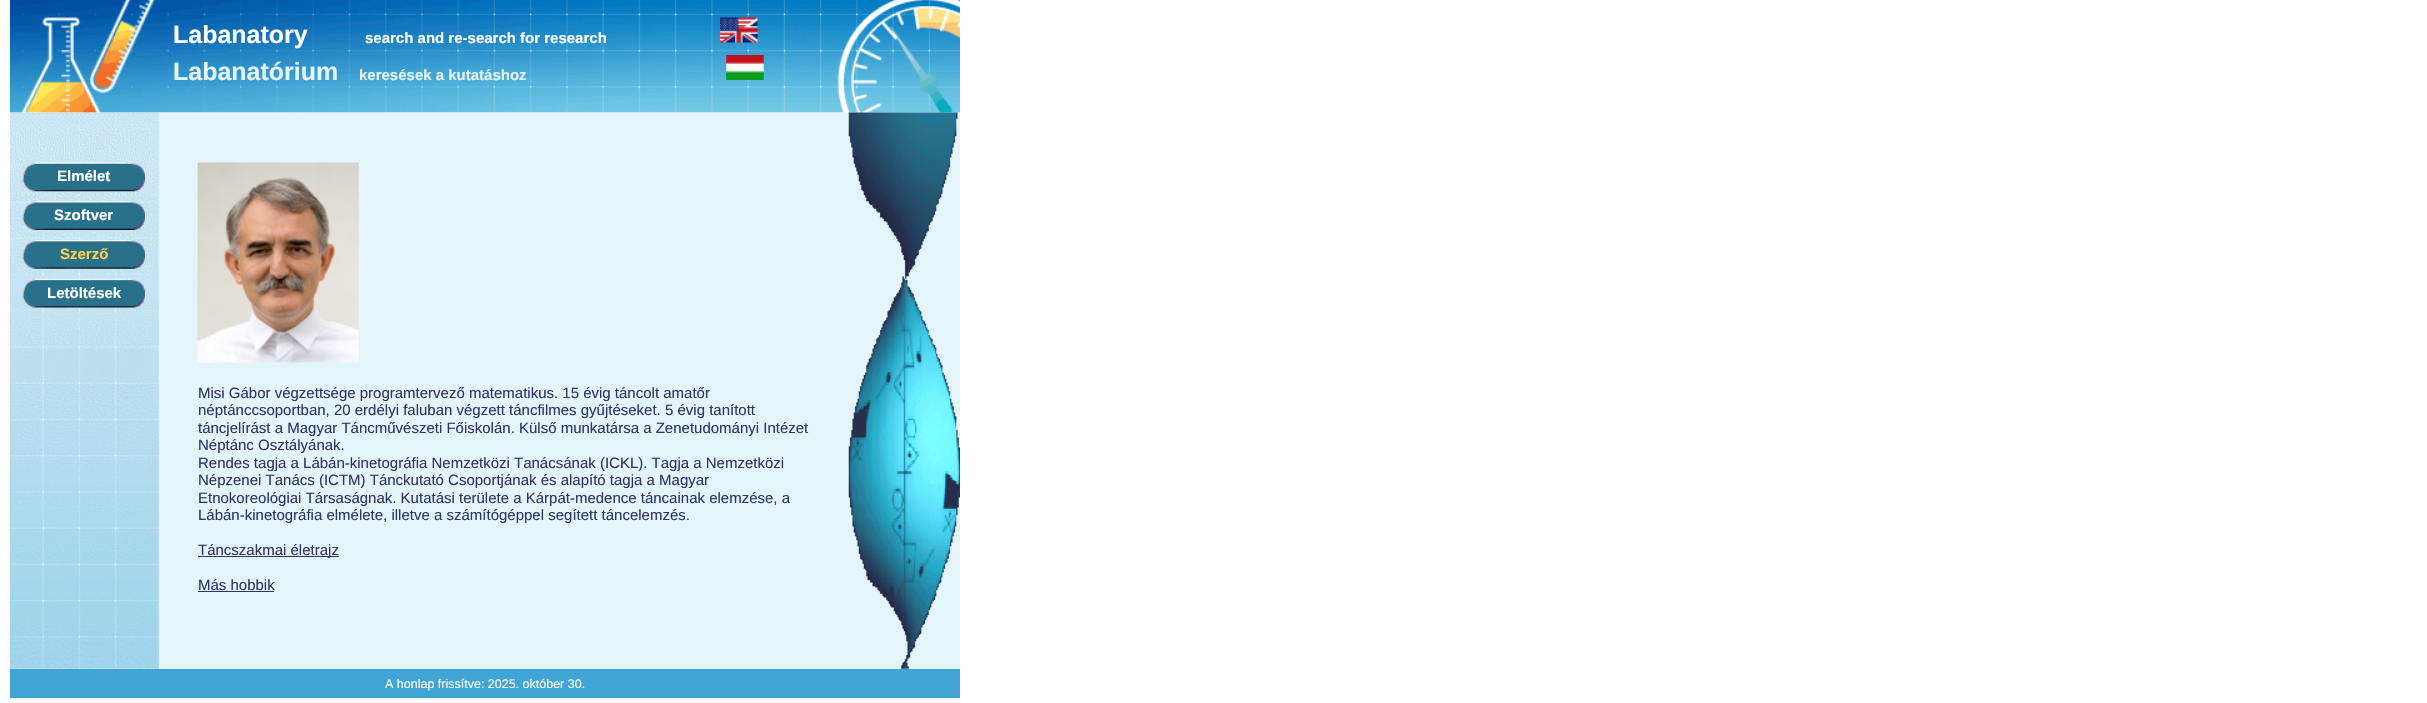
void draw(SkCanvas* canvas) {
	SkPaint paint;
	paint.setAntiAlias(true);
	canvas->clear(0xffffffff);
	canvas->drawImageRect(SkImages::DeferredFromEncodedData(SkData::MakeFromFileName("img1.png")), SkRect::MakeXYWH(10, 0, 950, 113), SkSamplingOptions());
	SkFont f1(fontMgr->matchFamilyStyle("Liberation Sans", SkFontStyle::Bold()), 25);
	f1.setSubpixel(true);
	paint.setColor(0xffffffff);
	canvas->drawString("Labanatory", 173, 43, f1, paint);
	SkFont f2(fontMgr->matchFamilyStyle("Liberation Sans", SkFontStyle::Bold()), 15);
	f2.setSubpixel(true);
	canvas->drawString("search and re-search for research", 365, 43, f2, paint);
	canvas->drawImageRect(SkImages::DeferredFromEncodedData(SkData::MakeFromFileName("img2.png")), SkRect::MakeXYWH(720, 17, 38, 26), SkSamplingOptions());
	paint.setColor(0xffe4f4fb);
	canvas->drawString("Labanatórium", 173, 80, f1, paint);
	canvas->drawString("keresések a kutatáshoz", 359, 80, f2, paint);
	canvas->drawImageRect(SkImages::DeferredFromEncodedData(SkData::MakeFromFileName("img3.png")), SkRect::MakeXYWH(726, 55, 38, 25), SkSamplingOptions());
	canvas->drawImageRect(SkImages::DeferredFromEncodedData(SkData::MakeFromFileName("img4.png")), SkRect::MakeXYWH(10, 112, 950, 557), SkSamplingOptions());
	canvas->drawImageRect(SkImages::DeferredFromEncodedData(SkData::MakeFromFileName("img5.png")), SkRect::MakeXYWH(22, 162, 123, 30), SkSamplingOptions());
	paint.setColor(0xffffffff);
	canvas->drawString("Elmélet", 57, 181, f2, paint);
	canvas->drawImageRect(SkImages::DeferredFromEncodedData(SkData::MakeFromFileName("img6.png")), SkRect::MakeXYWH(22, 201, 123, 29), SkSamplingOptions());
	canvas->drawString("Szoftver", 54, 220, f2, paint);
	canvas->drawImageRect(SkImages::DeferredFromEncodedData(SkData::MakeFromFileName("img7.png")), SkRect::MakeXYWH(22, 240, 123, 29), SkSamplingOptions());
	paint.setColor(0xffffcf4c);
	canvas->drawString("Szerző", 60, 259, f2, paint);
	canvas->drawImageRect(SkImages::DeferredFromEncodedData(SkData::MakeFromFileName("img8.png")), SkRect::MakeXYWH(22, 278, 123, 30), SkSamplingOptions());
	paint.setColor(0xffffffff);
	canvas->drawString("Letöltések", 47, 298, f2, paint);
	canvas->drawImageRect(SkImages::DeferredFromEncodedData(SkData::MakeFromFileName("img9.png")), SkRect::MakeXYWH(197, 162, 162, 201), SkSamplingOptions());
	SkFont f3(fontMgr->matchFamilyStyle("Liberation Sans", SkFontStyle::Normal()), 15);
	f3.setSubpixel(true);
	paint.setColor(0xff333366);
	canvas->drawString("Misi Gábor végzettsége programtervező matematikus. 15 évig táncolt amatőr", 198, 398, f3, paint);
	canvas->drawString("néptánccsoportban, 20 erdélyi faluban végzett táncfilmes gyűjtéseket. 5 évig tanított", 198, 415, f3, paint);
	canvas->drawString("táncjelírást a Magyar Táncművészeti Főiskolán. Külső munkatársa a Zenetudományi Intézet", 198, 433, f3, paint);
	canvas->drawString("Néptánc Osztályának.", 198, 450, f3, paint);
	canvas->drawString("Rendes tagja a Lábán-kinetográfia Nemzetközi Tanácsának (ICKL). Tagja a Nemzetközi", 198, 468, f3, paint);
	canvas->drawString("Népzenei Tanács (ICTM) Tánckutató Csoportjának és alapító tagja a Magyar", 198, 485, f3, paint);
	canvas->drawString("Etnokoreológiai Társaságnak. Kutatási területe a Kárpát-medence táncainak elemzése, a", 198, 503, f3, paint);
	canvas->drawString("Lábán-kinetográfia elmélete, illetve a számítógéppel segített táncelemzés.", 198, 520, f3, paint);
	canvas->drawRect(SkRect::MakeXYWH(198, 556, 141, 1), paint);
	canvas->drawString("Táncszakmai életrajz", 198, 555, f3, paint);
	canvas->drawString("Más hobbik", 198, 590, f3, paint);
	canvas->drawRect(SkRect::MakeXYWH(198, 591, 76, 1), paint);
	paint.setColor(0xff40a4d5);
	canvas->drawRect(SkRect::MakeXYWH(10, 669, 950, 29), paint);
	SkFont f4(fontMgr->matchFamilyStyle("Liberation Sans", SkFontStyle::Normal()), 12.5);
	f4.setSubpixel(true);
	paint.setColor(0xffffffff);
	canvas->drawString("A honlap frissítve: 2025. október 30.", 385, 688, f4, paint);
}
